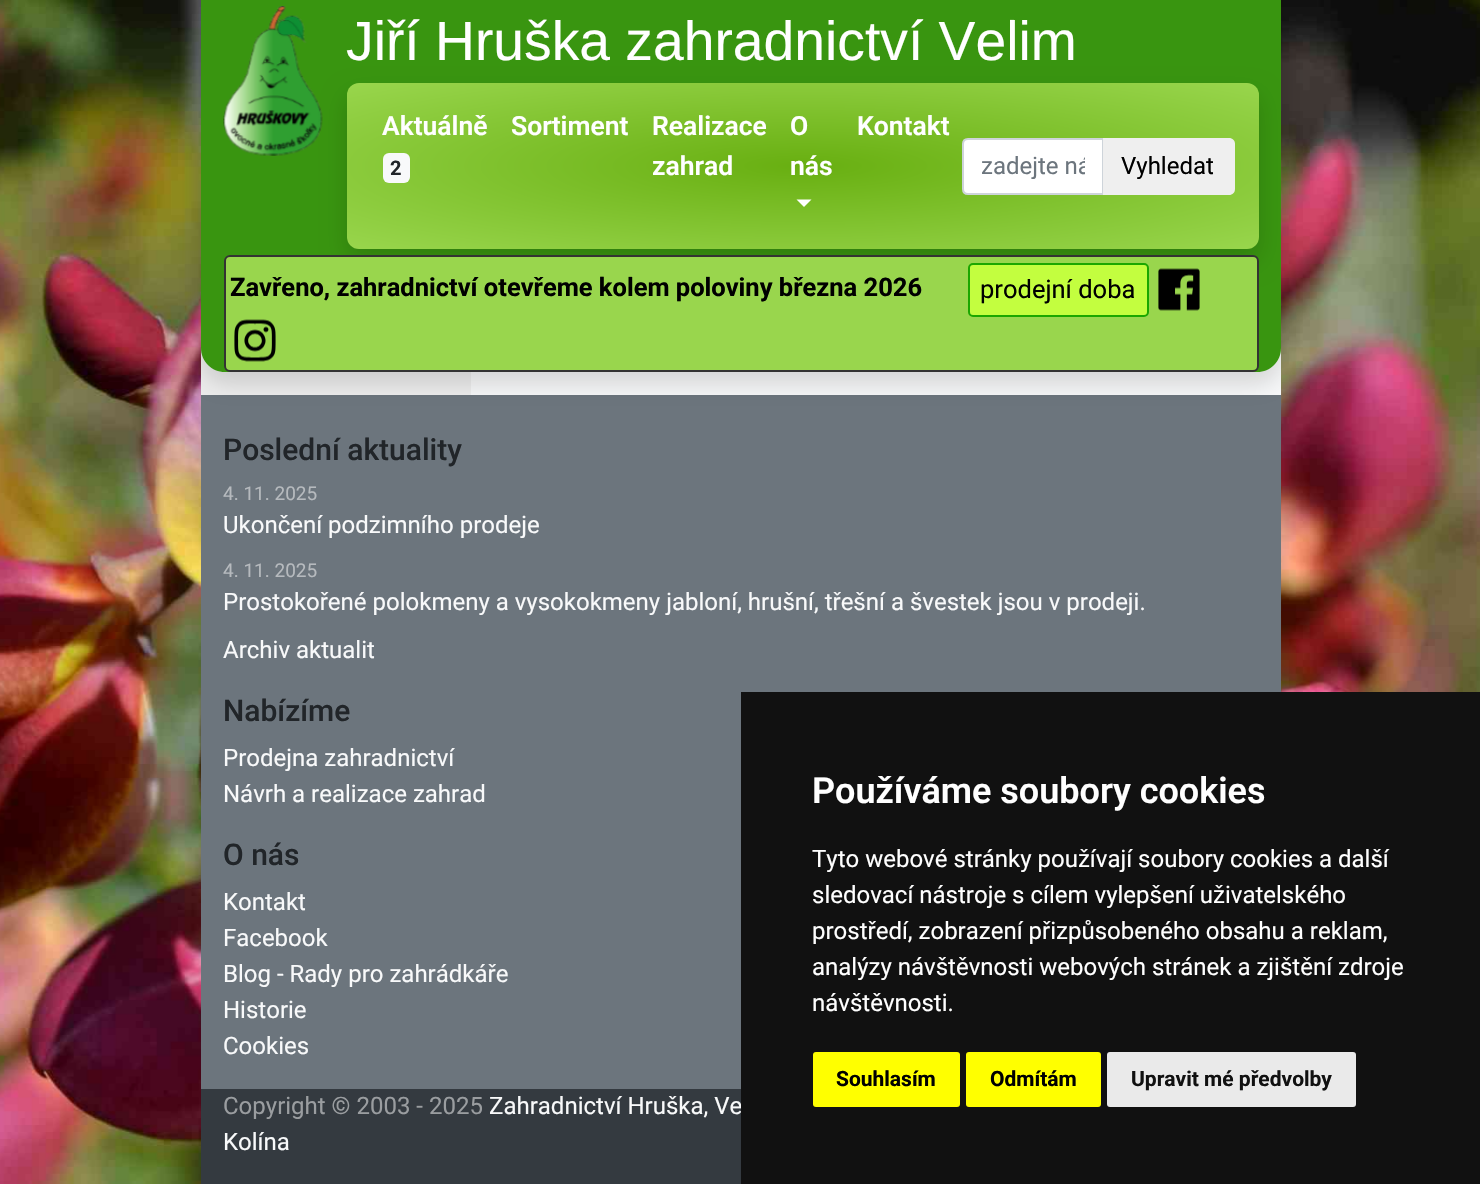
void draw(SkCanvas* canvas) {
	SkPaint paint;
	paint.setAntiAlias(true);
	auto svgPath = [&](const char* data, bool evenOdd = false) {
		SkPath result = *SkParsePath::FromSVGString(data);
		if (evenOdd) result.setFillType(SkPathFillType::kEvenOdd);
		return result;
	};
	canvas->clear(0xffffffff);
	canvas->drawImageRect(SkImages::DeferredFromEncodedData(SkData::MakeFromFileName("img1.png")), SkRect::MakeXYWH(0, 0, 1480, 1184), SkSamplingOptions());
	paint.setColor(0xfff8f9fa);
	canvas->drawRect(SkRect::MakeXYWH(471, 348, 810, 47), paint);
	paint.setColor(0xffeeeeee);
	canvas->drawRect(SkRect::MakeXYWH(201, 348, 270, 47), paint);
	paint.setColor(0xff6c757d);
	canvas->drawRect(SkRect::MakeXYWH(201, 395, 1080, 694), paint);
	paint.setColor(0x26000000);
	paint.setMaskFilter(SkMaskFilter::MakeBlur(kNormal_SkBlurStyle, 12));
	canvas->drawRoundRect(SkRect::MakeXYWH(201, 12, 1080, 372), 24, 24, paint);
	paint.setMaskFilter(nullptr);
	paint.setColor(0xff399510);
	canvas->drawPath(svgPath("M201 0H1281V348C1281 361.5 1270.5 372 1257 372H225C211.5 372 201 361.5 201 348Z"), paint);
	canvas->drawImageRect(SkImages::DeferredFromEncodedData(SkData::MakeFromFileName("img2.png")), SkRect::MakeXYWH(223, 6, 100, 150), SkSamplingOptions());
	SkFont f1(fontMgr->matchFamilyStyle("Liberation Sans", SkFontStyle::Normal()), 55.25);
	f1.setSubpixel(true);
	paint.setColor(0xffffffff);
	canvas->drawString("Jiří Hruška zahradnictví Velim", 346, 60, f1, paint);
	paint.setColor(0x26000000);
	paint.setMaskFilter(SkMaskFilter::MakeBlur(kNormal_SkBlurStyle, 12));
	canvas->drawRoundRect(SkRect::MakeXYWH(347, 95, 912, 166), 12, 12, paint);
	paint.setMaskFilter(nullptr);
	{
		const SkColor colors[] = {0xff68af11, 0xff99d64d};
		const float stops[] = {0, 1};
		SkMatrix m = SkMatrix::Translate(803, 166).preScale(645, 118);
		paint.setShader(SkGradientShader::MakeRadial({0, 0}, 1, colors, stops, 2, SkTileMode::kClamp, 0, &m));
		paint.setAlpha(255);
	}
	canvas->drawRoundRect(SkRect::MakeXYWH(347, 83, 912, 166), 12, 12, paint);
	SkFont f2(fontMgr->matchFamilyStyle("Roboto", SkFontStyle(600, SkFontStyle::kNormal_Width, SkFontStyle::kUpright_Slant)), 26.5);
	f2.setSubpixel(true);
	paint.setShader(nullptr);
	paint.setColor(0xffffffff);
	canvas->drawString("Aktuálně", 382, 135, f2, paint);
	paint.setColor(0xfff8f9fa);
	canvas->drawRoundRect(SkRect::MakeXYWH(383, 153, 27, 30), 6, 6, paint);
	SkFont f3(fontMgr->matchFamilyStyle("Roboto", SkFontStyle::Bold()), 20);
	f3.setSubpixel(true);
	paint.setColor(0xff212529);
	canvas->drawString("2", 390, 175, f3, paint);
	paint.setColor(0xffffffff);
	canvas->drawString("Sortiment", 511, 135, f2, paint);
	canvas->drawString("Realizace", 652, 135, f2, paint);
	canvas->drawString("zahrad", 652, 175, f2, paint);
	canvas->drawString("O", 790, 135, f2, paint);
	canvas->drawString("nás", 790, 175, f2, paint);
	canvas->drawPath(svgPath("M796.5 199.5H811.5L804 207Z"), paint);
	canvas->drawString("Kontakt", 857, 135, f2, paint);
	canvas->drawPath(svgPath("M968 139H1103V194H968C965 194 963 192 963 189V144C963 141 965 139 968 139Z"), paint);
	paint.setStroke(true);
	paint.setStrokeWidth(2);
	paint.setColor(0xffced4da);
	canvas->drawPath(svgPath("M968 139H1103V194H968C965 194 963 192 963 189V144C963 141 965 139 968 139Z"), paint);
	canvas->save();
	canvas->clipRect(SkRect::MakeXYWH(981, 152, 104, 28));
	SkFont f4(fontMgr->matchFamilyStyle("Roboto", SkFontStyle::Normal()), 24);
	f4.setSubpixel(true);
	paint.setStroke(false);
	paint.setColor(0xff6c757d);
	canvas->drawString("zadejte ná", 981, 174, f4, paint);
	canvas->restore();
	paint.setColor(0xffefefef);
	canvas->drawPath(svgPath("M1103 138H1229C1232.5 138 1235 140.5 1235 144V189C1235 192.5 1232.5 195 1229 195H1103Z"), paint);
	paint.setColor(0xff000000);
	canvas->drawString("Vyhledat", 1121, 174, f4, paint);
	paint.setColor(0xff99d64d);
	canvas->drawRoundRect(SkRect::MakeXYWH(225, 256, 1033, 115), 5, 5, paint);
	paint.setStroke(true);
	paint.setColor(0xff333333);
	canvas->drawRoundRect(SkRect::MakeXYWH(225, 256, 1033, 115), 5, 5, paint);
	SkFont f5(fontMgr->matchFamilyStyle("Roboto", SkFontStyle::Bold()), 25.5);
	f5.setSubpixel(true);
	paint.setStroke(false);
	paint.setColor(0xff000000);
	canvas->drawString("Zavřeno, zahradnictví otevřeme kolem poloviny března 2026", 230, 296, f5, paint);
	paint.setColor(0xffc3fe3f);
	canvas->drawRoundRect(SkRect::MakeXYWH(969, 264, 179, 52), 4, 4, paint);
	paint.setStroke(true);
	paint.setColor(0xff1ba700);
	canvas->drawRoundRect(SkRect::MakeXYWH(969, 264, 179, 52), 4, 4, paint);
	SkFont f6(fontMgr->matchFamilyStyle("Roboto", SkFontStyle::Normal()), 25.5);
	f6.setSubpixel(true);
	paint.setStroke(false);
	paint.setColor(0xff000000);
	canvas->drawString("prodejní doba", 980, 298, f6, paint);
	canvas->drawImageRect(SkImages::DeferredFromEncodedData(SkData::MakeFromFileName("img3.png")), SkRect::MakeXYWH(1158, 268, 42, 43), SkSamplingOptions());
	canvas->drawImageRect(SkImages::DeferredFromEncodedData(SkData::MakeFromFileName("img4.png")), SkRect::MakeXYWH(234, 319, 42, 43), SkSamplingOptions());
	SkFont f7(fontMgr->matchFamilyStyle("Roboto", SkFontStyle(500, SkFontStyle::kNormal_Width, SkFontStyle::kUpright_Slant)), 30);
	f7.setSubpixel(true);
	paint.setColor(0xff212529);
	canvas->drawString("Poslední aktuality", 223, 460, f7, paint);
	SkFont f8(fontMgr->matchFamilyStyle("Roboto", SkFontStyle::Normal()), 19);
	f8.setSubpixel(true);
	paint.setColor(0xffb6babe);
	canvas->drawString("4. 11. 2025", 223, 500, f8, paint);
	paint.setColor(0xfff8f9fa);
	canvas->drawString("Ukončení podzimního prodeje", 223, 533, f4, paint);
	paint.setColor(0xffb6babe);
	canvas->drawString("4. 11. 2025", 223, 577, f8, paint);
	paint.setColor(0xfff8f9fa);
	canvas->drawString("Prostokořené polokmeny a vysokokmeny jabloní, hrušní, třešní a švestek jsou v prodeji.", 223, 610, f4, paint);
	canvas->drawString("Archiv aktualit", 223, 658, f4, paint);
	paint.setColor(0xff212529);
	canvas->drawString("Nabízíme", 223, 721, f7, paint);
	paint.setColor(0xfff8f9fa);
	canvas->drawString("Prodejna zahradnictví", 223, 766, f4, paint);
	canvas->drawString("Návrh a realizace zahrad", 223, 802, f4, paint);
	paint.setColor(0xff212529);
	canvas->drawString("O nás", 223, 865, f7, paint);
	paint.setColor(0xfff8f9fa);
	canvas->drawString("Kontakt", 223, 910, f4, paint);
	canvas->drawString("Facebook", 223, 946, f4, paint);
	canvas->drawString("Blog - Rady pro zahrádkáře", 223, 982, f4, paint);
	canvas->drawString("Historie", 223, 1018, f4, paint);
	canvas->drawString("Cookies", 223, 1054, f4, paint);
	paint.setColor(0xff343a40);
	canvas->drawRect(SkRect::MakeXYWH(201, 1089, 540, 95), paint);
	paint.setColor(0xff9a9da0);
	canvas->drawString("Copyright © 2003 - 2025", 223, 1114, f4, paint);
	paint.setColor(0xfff8f9fa);
	canvas->drawString("Zahradnictví Hruška, Ve", 489, 1114, f4, paint);
	canvas->drawString("Kolína", 223, 1150, f4, paint);
	paint.setColor(0xff111111);
	canvas->drawRect(SkRect::MakeXYWH(741, 692, 739, 492), paint);
	SkFont f9(fontMgr->matchFamilyStyle("Roboto", SkFontStyle(600, SkFontStyle::kNormal_Width, SkFontStyle::kUpright_Slant)), 36);
	f9.setSubpixel(true);
	paint.setColor(0xffffffff);
	canvas->drawString("Používáme soubory cookies", 812, 803, f9, paint);
	canvas->drawString("Tyto webové stránky používají soubory cookies a další", 812, 867, f4, paint);
	canvas->drawString("sledovací nástroje s cílem vylepšení uživatelského", 812, 903, f4, paint);
	canvas->drawString("prostředí, zobrazení přizpůsobeného obsahu a reklam,", 812, 939, f4, paint);
	canvas->drawString("analýzy návštěvnosti webových stránek a zjištění zdroje", 812, 975, f4, paint);
	canvas->drawString("návštěvnosti.", 812, 1011, f4, paint);
	paint.setColor(0xffffff00);
	canvas->drawRoundRect(SkRect::MakeXYWH(813, 1052, 147, 55), 3, 3, paint);
	SkFont f10(fontMgr->matchFamilyStyle("Roboto", SkFontStyle::Bold()), 21);
	f10.setSubpixel(true);
	paint.setColor(0xff000000);
	canvas->drawString("Souhlasím", 836, 1086, f10, paint);
	paint.setColor(0xffffff00);
	canvas->drawRoundRect(SkRect::MakeXYWH(966, 1052, 135, 55), 3, 3, paint);
	paint.setColor(0xff000000);
	canvas->drawString("Odmítám", 990, 1086, f10, paint);
	paint.setColor(0xffeaeaea);
	canvas->drawRoundRect(SkRect::MakeXYWH(1107, 1052, 249, 55), 3, 3, paint);
	paint.setColor(0xff111111);
	canvas->drawString("Upravit mé předvolby", 1131, 1086, f10, paint);
}
